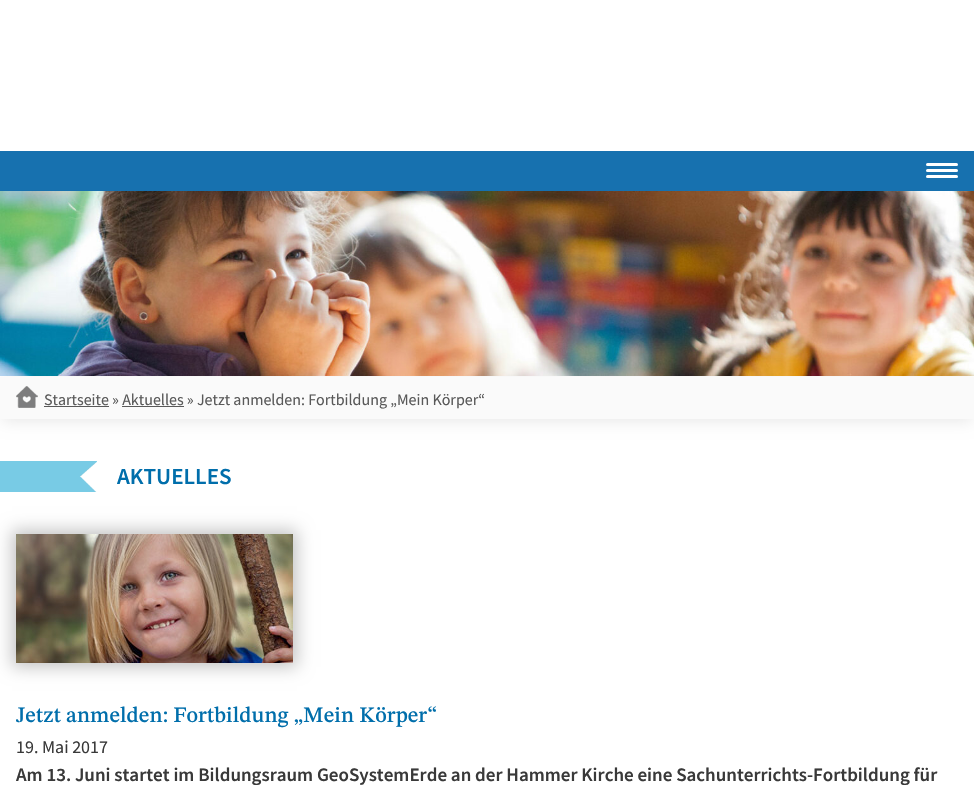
void draw(SkCanvas* canvas) {
	SkPaint paint;
	paint.setAntiAlias(true);
	canvas->clear(0xffffffff);
	paint.setColor(0xff1771af);
	canvas->drawRect(SkRect::MakeXYWH(0, 151, 974, 40), paint);
	paint.setColor(0xffffffff);
	canvas->drawRoundRect(SkRect::MakeXYWH(926, 169, 32, 3), 1.5, 1.5, paint);
	canvas->drawRoundRect(SkRect::MakeXYWH(926, 163, 32, 3), 1.5, 1.5, paint);
	canvas->drawRoundRect(SkRect::MakeXYWH(926, 175, 32, 3), 1.5, 1.5, paint);
	paint.setColor(0xffe7e7e7);
	paint.setMaskFilter(SkMaskFilter::MakeBlur(kNormal_SkBlurStyle, 8));
	canvas->drawRect(SkRect::MakeXYWH(2, 381, 970, 40), paint);
	paint.setMaskFilter(nullptr);
	canvas->drawImageRect(SkImages::DeferredFromEncodedData(SkData::MakeFromFileName("img1.png")), SkRect::MakeXYWH(0, 191, 974, 185), SkSamplingOptions());
	paint.setColor(0xfffafafa);
	canvas->drawRect(SkRect::MakeXYWH(0, 377, 974, 42), paint);
	canvas->drawImageRect(SkImages::DeferredFromEncodedData(SkData::MakeFromFileName("img2.png")), SkRect::MakeXYWH(16, 386, 22, 22), SkSamplingOptions());
	paint.setColor(0xff595959);
	canvas->drawRect(SkRect::MakeXYWH(44, 406, 65, 1), paint);
	SkFont f1(fontMgr->matchFamilyStyle("Source Sans Pro", SkFontStyle::Normal()), 16);
	f1.setSubpixel(true);
	canvas->drawString("Startseite » Aktuelles » Jetzt anmelden: Fortbildung „Mein Körper“", 44, 405, f1, paint);
	canvas->drawRect(SkRect::MakeXYWH(122, 406, 62, 1), paint);
	canvas->drawImageRect(SkImages::DeferredFromEncodedData(SkData::MakeFromFileName("img3.png")), SkRect::MakeXYWH(0, 461, 97, 31), SkSamplingOptions());
	SkFont f2(fontMgr->matchFamilyStyle("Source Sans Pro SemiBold", SkFontStyle(600, SkFontStyle::kNormal_Width, SkFontStyle::kUpright_Slant)), 23);
	f2.setSubpixel(true);
	paint.setColor(0xff006eab);
	canvas->drawString("AKTUELLES", 117, 484, f2, paint);
	paint.setColor(0xffc3c3c3);
	paint.setMaskFilter(SkMaskFilter::MakeBlur(kNormal_SkBlurStyle, 8));
	canvas->drawRect(SkRect::MakeXYWH(12, 530, 285, 137), paint);
	paint.setMaskFilter(nullptr);
	canvas->drawImageRect(SkImages::DeferredFromEncodedData(SkData::MakeFromFileName("img4.png")), SkRect::MakeXYWH(16, 534, 277, 129), SkSamplingOptions());
	SkFont f3(fontMgr->matchFamilyStyle("STIX Two Text", SkFontStyle(500, SkFontStyle::kNormal_Width, SkFontStyle::kUpright_Slant)), 22);
	f3.setSubpixel(true);
	paint.setColor(0xff006eab);
	canvas->drawString("Jetzt anmelden: Fortbildung „Mein Körper“", 16, 722, f3, paint);
	SkFont f4(fontMgr->matchFamilyStyle("Source Sans Pro", SkFontStyle::Normal()), 18);
	f4.setSubpixel(true);
	paint.setColor(0xff393939);
	canvas->drawString("19. Mai 2017", 16, 753, f4, paint);
	SkFont f5(fontMgr->matchFamilyStyle("Source Sans Pro SemiBold", SkFontStyle(600, SkFontStyle::kNormal_Width, SkFontStyle::kUpright_Slant)), 19);
	f5.setSubpixel(true);
	canvas->drawString("Am 13. Juni startet im Bildungsraum GeoSystemErde an der Hammer Kirche eine Sachunterrichts-Fortbildung für", 16, 781, f5, paint);
}
